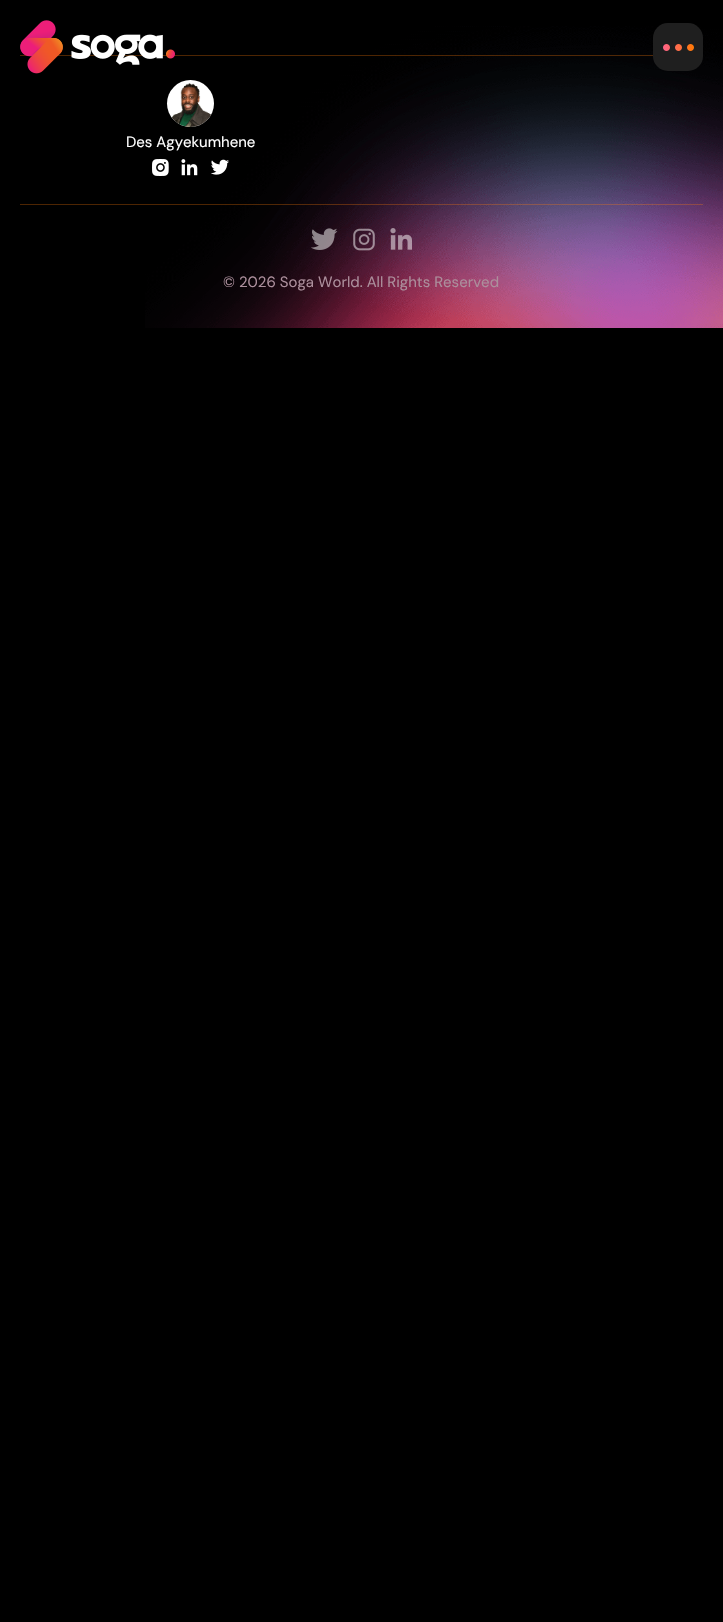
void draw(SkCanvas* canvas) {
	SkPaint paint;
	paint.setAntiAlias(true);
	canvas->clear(0xff000000);
	canvas->drawImageRect(SkImages::DeferredFromEncodedData(SkData::MakeFromFileName("img3.png")), SkRect::MakeXYWH(145, 26, 578, 302), SkSamplingOptions());
	paint.setColor(0x4dff7908);
	canvas->drawRect(SkRect::MakeXYWH(20, 55, 633, 1), paint);
	canvas->drawImageRect(SkImages::DeferredFromEncodedData(SkData::MakeFromFileName("img1.png")), SkRect::MakeXYWH(20, 20, 155, 54), SkSamplingOptions());
	paint.setColor(0xff1f1f1f);
	canvas->drawRoundRect(SkRect::MakeXYWH(653, 23, 50, 48), 15, 15, paint);
	canvas->drawImageRect(SkImages::DeferredFromEncodedData(SkData::MakeFromFileName("img2.png")), SkRect::MakeXYWH(663, 44, 31, 7), SkSamplingOptions());
	paint.setColor(0x4dff7908);
	canvas->drawRect(SkRect::MakeXYWH(20, 204, 683, 1), paint);
	paint.setColor(0xffffffff);
	canvas->drawCircle(190.5, 103.5, 23.5, paint);
	canvas->drawImageRect(SkImages::DeferredFromEncodedData(SkData::MakeFromFileName("img4.png")), SkRect::MakeXYWH(172, 83, 39, 44), SkSamplingOptions());
	SkFont f1(fontMgr->matchFamilyStyle("DM Sans", SkFontStyle::Normal()), 15);
	f1.setSubpixel(true);
	canvas->drawString("Des Agyekumhene", 126, 147, f1, paint);
	canvas->drawImageRect(SkImages::DeferredFromEncodedData(SkData::MakeFromFileName("img5.png")), SkRect::MakeXYWH(152, 159, 17, 17), SkSamplingOptions());
	canvas->drawImageRect(SkImages::DeferredFromEncodedData(SkData::MakeFromFileName("img6.png")), SkRect::MakeXYWH(181, 159, 17, 17), SkSamplingOptions());
	canvas->drawImageRect(SkImages::DeferredFromEncodedData(SkData::MakeFromFileName("img7.png")), SkRect::MakeXYWH(211, 159, 18, 16), SkSamplingOptions());
	canvas->drawImageRect(SkImages::DeferredFromEncodedData(SkData::MakeFromFileName("img8.png")), SkRect::MakeXYWH(311, 228, 27, 22), SkSamplingOptions());
	canvas->drawImageRect(SkImages::DeferredFromEncodedData(SkData::MakeFromFileName("img9.png")), SkRect::MakeXYWH(353, 228, 22, 23), SkSamplingOptions());
	canvas->drawImageRect(SkImages::DeferredFromEncodedData(SkData::MakeFromFileName("img10.png")), SkRect::MakeXYWH(390, 228, 22, 22), SkSamplingOptions());
	paint.setColor(0xffac8f9c);
	canvas->drawString("© 2026 Soga World. All Rights Reserved", 223, 287, f1, paint);
}
